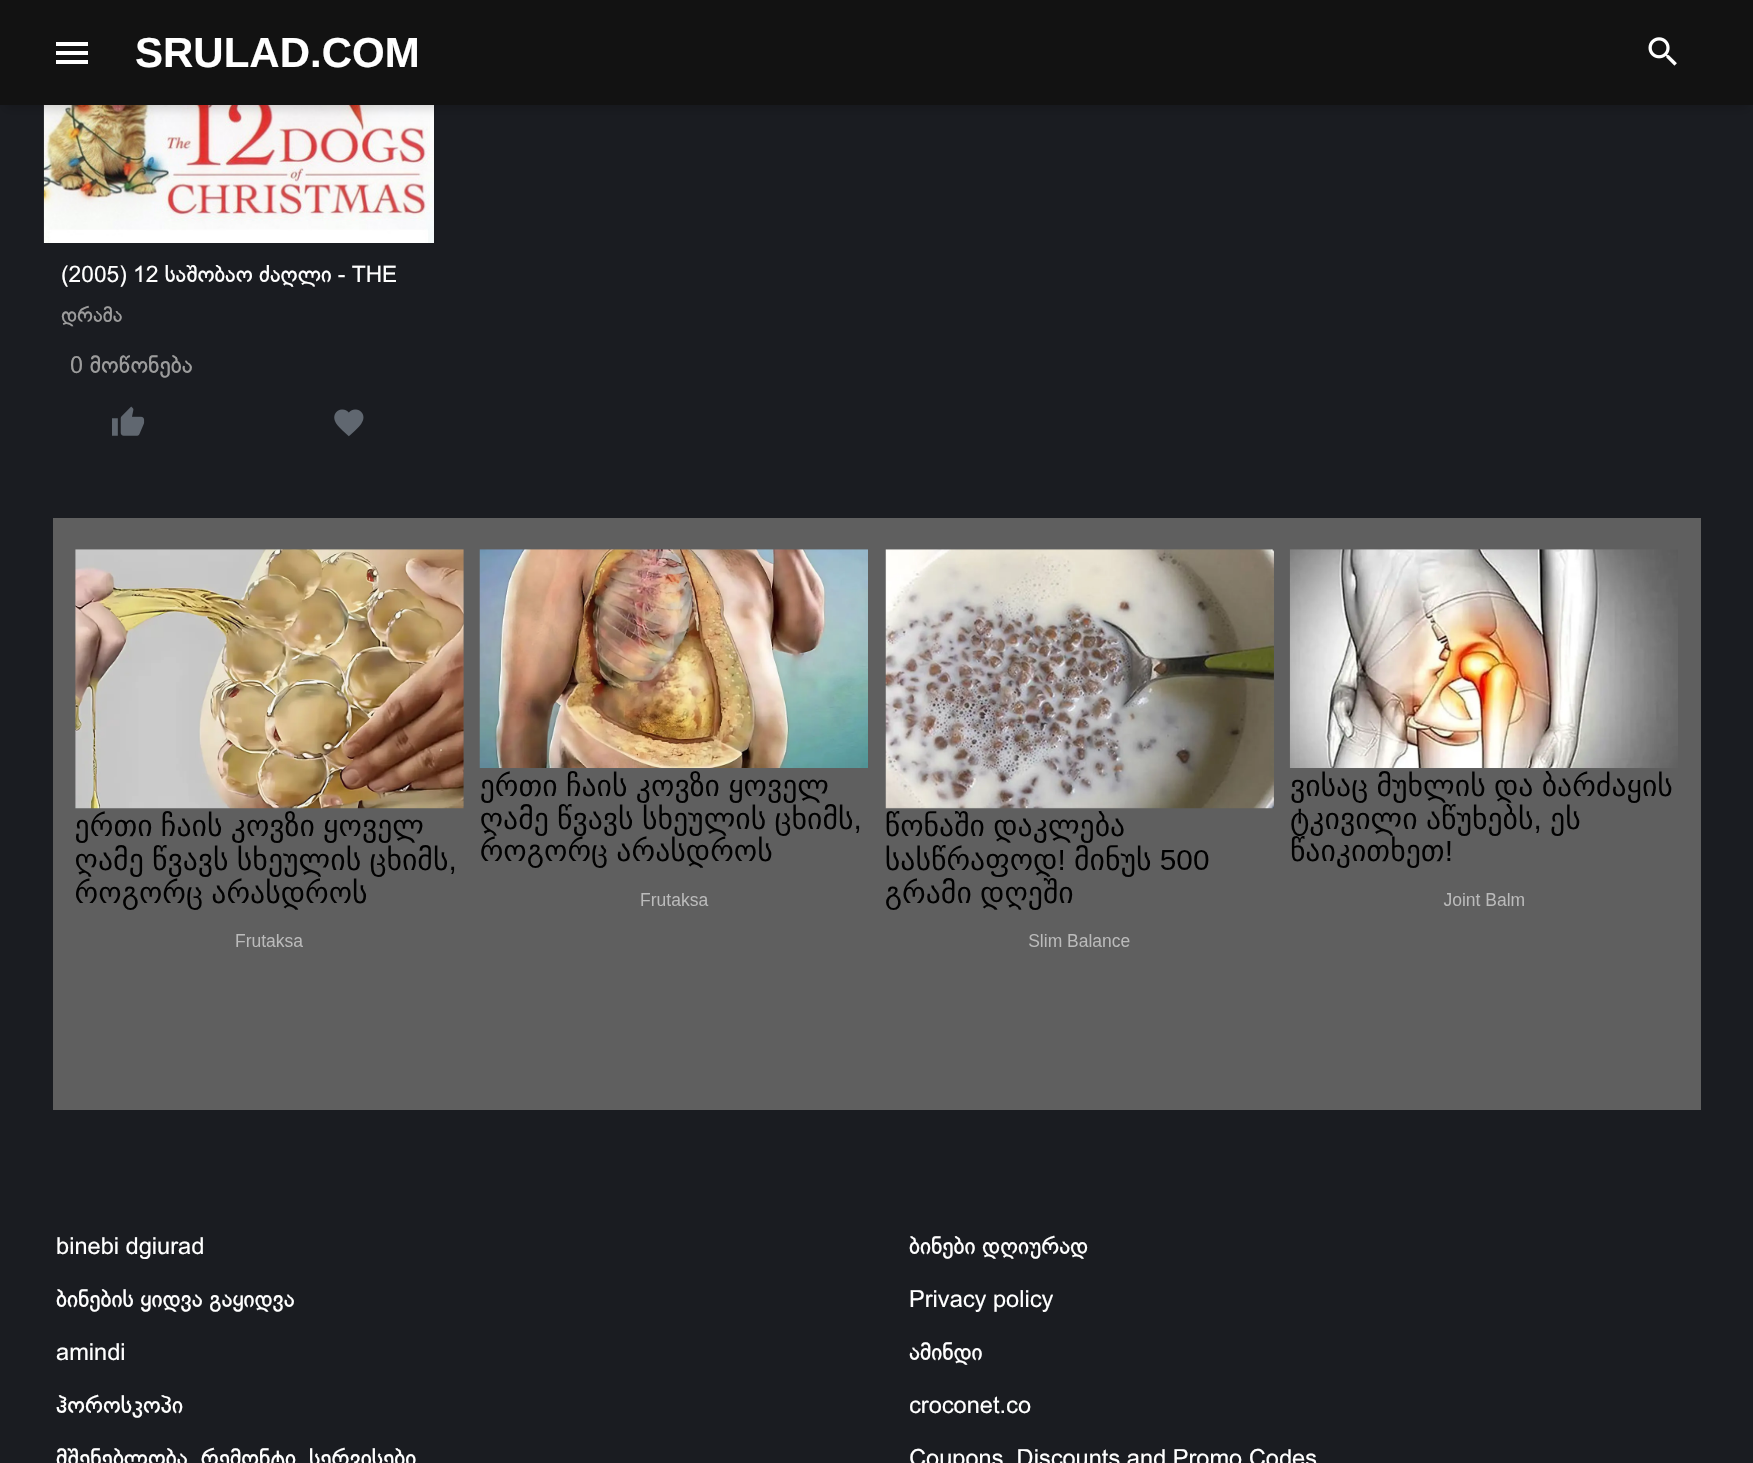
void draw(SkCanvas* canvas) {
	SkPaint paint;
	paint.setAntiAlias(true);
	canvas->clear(0xff1a1c21);
	canvas->drawImageRect(SkImages::DeferredFromEncodedData(SkData::MakeFromFileName("img2.png")), SkRect::MakeXYWH(43, 105, 391, 138), SkSamplingOptions());
	paint.setColor(0x26000000);
	paint.setMaskFilter(SkMaskFilter::MakeBlur(kNormal_SkBlurStyle, 4.5));
	canvas->drawRect(SkRect::MakeXYWH(5, 14, 1743, 95), paint);
	paint.setMaskFilter(nullptr);
	paint.setColor(0xff121212);
	canvas->drawRect(SkRect::MakeXYWH(0, 0, 1753, 105), paint);
	paint.setColor(0xffffffff);
	canvas->drawRect(SkRect::MakeXYWH(56, 42, 32, 4), paint);
	canvas->drawRect(SkRect::MakeXYWH(56, 51, 32, 4), paint);
	canvas->drawRect(SkRect::MakeXYWH(56, 60, 32, 4), paint);
	SkFont f1(fontMgr->matchFamilyStyle("Liberation Sans", SkFontStyle::Bold()), 42);
	f1.setSubpixel(true);
	canvas->drawString("SRULAD.COM", 135, 67, f1, paint);
	canvas->drawImageRect(SkImages::DeferredFromEncodedData(SkData::MakeFromFileName("img1.png")), SkRect::MakeXYWH(1648, 37, 29, 29), SkSamplingOptions());
	SkFont f2(fontMgr->matchFamilyStyle("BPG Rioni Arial", SkFontStyle::Normal()), 22.75);
	f2.setSubpixel(true);
	canvas->drawString("(2005) 12 საშობაო ძაღლი - THE", 61, 282, f2, paint);
	SkFont f3(fontMgr->matchFamilyStyle("BPG Rioni Arial", SkFontStyle::Normal()), 21);
	f3.setSubpixel(true);
	paint.setColor(0xff9c9c9c);
	canvas->drawString("დრამა", 61, 322, f3, paint);
	SkFont f4(fontMgr->matchFamilyStyle("BPG Rioni Arial", SkFontStyle::Normal()), 23.6);
	f4.setSubpixel(true);
	canvas->drawString("0 მოწონება", 70, 373, f4, paint);
	canvas->drawImageRect(SkImages::DeferredFromEncodedData(SkData::MakeFromFileName("img3.png")), SkRect::MakeXYWH(112, 406, 33, 30), SkSamplingOptions());
	canvas->drawImageRect(SkImages::DeferredFromEncodedData(SkData::MakeFromFileName("img4.png")), SkRect::MakeXYWH(334, 409, 30, 28), SkSamplingOptions());
	paint.setColor(0xff5f5f5f);
	canvas->drawRect(SkRect::MakeXYWH(53, 518, 1648, 592), paint);
	canvas->drawImageRect(SkImages::DeferredFromEncodedData(SkData::MakeFromFileName("img5.png")), SkRect::MakeXYWH(75, 549, 1603, 398), SkSamplingOptions());
	paint.setColor(0xffffffff);
	canvas->drawString("binebi dgiurad", 56, 1254, f4, paint);
	canvas->drawString("ბინები დღიურად", 909, 1254, f4, paint);
	canvas->drawString("ბინების ყიდვა გაყიდვა", 56, 1307, f4, paint);
	canvas->drawString("Privacy policy", 909, 1307, f4, paint);
	canvas->drawString("amindi", 56, 1360, f4, paint);
	canvas->drawString("ამინდი", 909, 1360, f4, paint);
	canvas->drawString("ჰოროსკოპი", 56, 1413, f4, paint);
	canvas->drawString("croconet.co", 909, 1413, f4, paint);
	canvas->drawString("მშენებლობა, რემონტი, სერვისები", 56, 1466, f4, paint);
	canvas->drawString("Coupons, Discounts and Promo Codes", 909, 1466, f4, paint);
}
